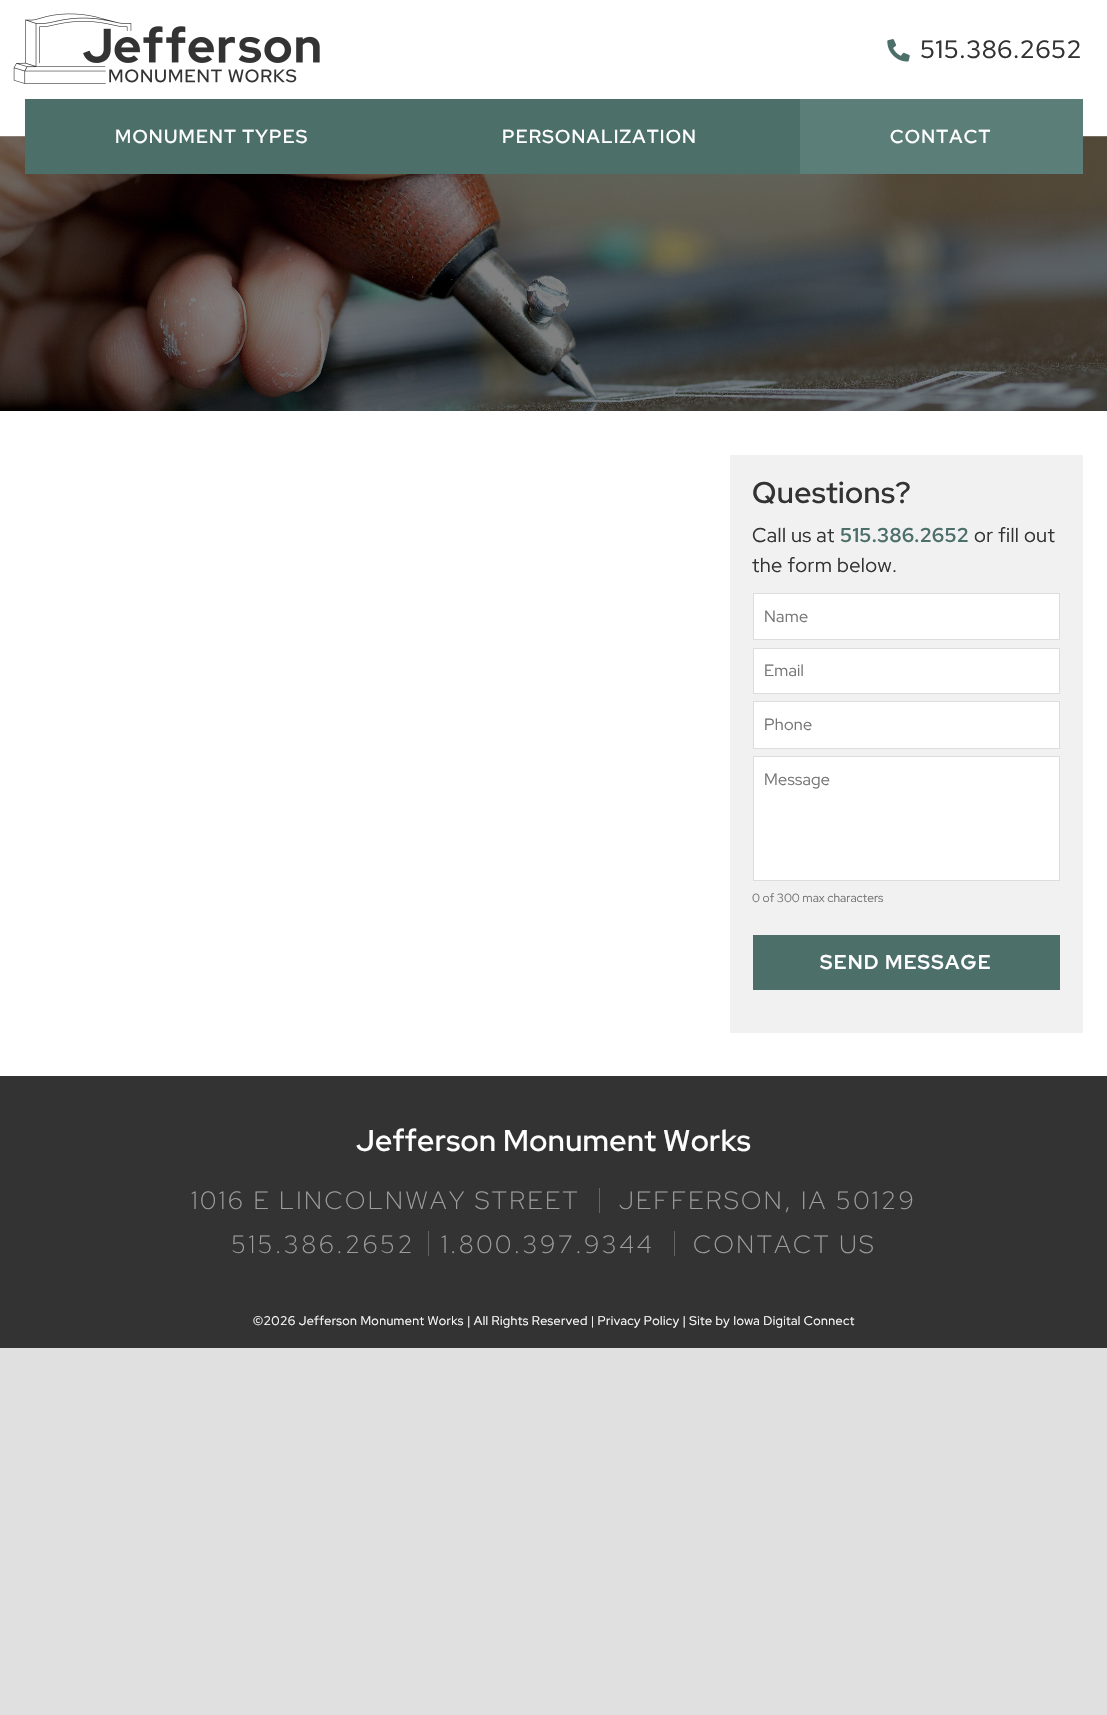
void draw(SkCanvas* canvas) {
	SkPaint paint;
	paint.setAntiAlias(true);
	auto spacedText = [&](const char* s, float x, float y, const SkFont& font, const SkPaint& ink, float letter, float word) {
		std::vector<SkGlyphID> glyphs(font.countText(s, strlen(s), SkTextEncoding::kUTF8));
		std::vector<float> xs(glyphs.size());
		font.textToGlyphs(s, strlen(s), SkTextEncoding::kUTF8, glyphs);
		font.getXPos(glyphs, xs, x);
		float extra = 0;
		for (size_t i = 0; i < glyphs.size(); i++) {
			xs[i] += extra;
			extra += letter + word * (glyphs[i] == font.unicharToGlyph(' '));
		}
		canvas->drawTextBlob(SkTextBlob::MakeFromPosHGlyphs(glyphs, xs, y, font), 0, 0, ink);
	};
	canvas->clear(0xffe0e0e0);
	paint.setColor(0xffffffff);
	canvas->drawRect(SkRect::MakeXYWH(0, 0, 1107, 136), paint);
	canvas->drawImageRect(SkImages::DeferredFromEncodedData(SkData::MakeFromFileName("img1.png")), SkRect::MakeXYWH(13, 13, 307, 71), SkSamplingOptions());
	canvas->drawImageRect(SkImages::DeferredFromEncodedData(SkData::MakeFromFileName("img2.png")), SkRect::MakeXYWH(887, 39, 23, 23), SkSamplingOptions());
	SkFont f1(fontMgr->matchFamilyStyle("Red Hat Display", SkFontStyle(500, SkFontStyle::kNormal_Width, SkFontStyle::kUpright_Slant)), 25);
	f1.setSubpixel(true);
	paint.setColor(0xff333333);
	spacedText("515.386.2652", 920, 58, f1, paint, 0.6, 0);
	canvas->drawImageRect(SkImages::DeferredFromEncodedData(SkData::MakeFromFileName("img3.png")), SkRect::MakeXYWH(0, 136, 1107, 275), SkSamplingOptions());
	paint.setColor(0xff4c6f6a);
	canvas->drawRect(SkRect::MakeXYWH(25, 99, 775, 75), paint);
	SkFont f2(fontMgr->matchFamilyStyle("Red Hat Display", SkFontStyle(600, SkFontStyle::kNormal_Width, SkFontStyle::kUpright_Slant)), 18.75);
	f2.setSubpixel(true);
	paint.setColor(0xffffffff);
	spacedText("MONUMENT TYPES", 115, 143, f2, paint, 1.25, 0);
	spacedText("PERSONALIZATION", 502, 143, f2, paint, 1.25, 0);
	paint.setColor(0xff5b7e79);
	canvas->drawRect(SkRect::MakeXYWH(800, 99, 283, 75), paint);
	paint.setColor(0xffffffff);
	spacedText("CONTACT", 890, 143, f2, paint, 1.25, 0);
	canvas->drawRect(SkRect::MakeXYWH(0, 411, 1107, 665), paint);
	paint.setColor(0xfff1f1f1);
	canvas->drawRect(SkRect::MakeXYWH(730, 455, 353, 578), paint);
	SkFont f3(fontMgr->matchFamilyStyle("Red Hat Display", SkFontStyle(600, SkFontStyle::kNormal_Width, SkFontStyle::kUpright_Slant)), 30);
	f3.setSubpixel(true);
	paint.setColor(0xff333333);
	spacedText("Questions?", 752, 503, f3, paint, 0.38, 0);
	SkFont f4(fontMgr->matchFamilyStyle("Red Hat Display", SkFontStyle::Normal()), 20);
	f4.setSubpixel(true);
	spacedText("Call us at", 752, 542, f4, paint, 0.38, 0);
	SkFont f5(fontMgr->matchFamilyStyle("Red Hat Display", SkFontStyle::Bold()), 20);
	f5.setSubpixel(true);
	paint.setColor(0xff4c6f6a);
	spacedText("515.386.2652", 840, 542, f5, paint, 0.38, 0);
	paint.setColor(0xff333333);
	spacedText("or fill out", 974, 542, f4, paint, 0.38, 0);
	spacedText("the form below.", 752, 572, f4, paint, 0.38, 0);
	paint.setColor(0xffffffff);
	canvas->drawRect(SkRect::MakeXYWH(753.5, 593.5, 306, 46), paint);
	paint.setStroke(true);
	paint.setStrokeWidth(1);
	paint.setColor(0xffdddddd);
	canvas->drawRect(SkRect::MakeXYWH(753.5, 593.5, 306, 46), paint);
	SkFont f6(fontMgr->matchFamilyStyle("Red Hat Display", SkFontStyle::Normal()), 16.25);
	f6.setSubpixel(true);
	paint.setStroke(false);
	paint.setColor(0xff757575);
	spacedText("Name", 764, 622, f6, paint, 0.25, 0);
	paint.setColor(0xffffffff);
	canvas->drawRect(SkRect::MakeXYWH(753.5, 648.5, 306, 45), paint);
	paint.setStroke(true);
	paint.setColor(0xffdddddd);
	canvas->drawRect(SkRect::MakeXYWH(753.5, 648.5, 306, 45), paint);
	paint.setStroke(false);
	paint.setColor(0xff757575);
	spacedText("Email", 764, 676, f6, paint, 0.25, 0);
	paint.setColor(0xffffffff);
	canvas->drawRect(SkRect::MakeXYWH(753.5, 701.5, 306, 47), paint);
	paint.setStroke(true);
	paint.setColor(0xffdddddd);
	canvas->drawRect(SkRect::MakeXYWH(753.5, 701.5, 306, 47), paint);
	paint.setStroke(false);
	paint.setColor(0xff757575);
	spacedText("Phone", 764, 730, f6, paint, 0.25, 0);
	paint.setColor(0xffffffff);
	canvas->drawRect(SkRect::MakeXYWH(753.5, 756.5, 306, 124), paint);
	paint.setStroke(true);
	paint.setColor(0xffdddddd);
	canvas->drawRect(SkRect::MakeXYWH(753.5, 756.5, 306, 124), paint);
	paint.setStroke(false);
	paint.setColor(0xff757575);
	spacedText("Message", 764, 785, f6, paint, 0.25, 0);
	SkFont f7(fontMgr->matchFamilyStyle("Red Hat Display", SkFontStyle::Normal()), 12);
	f7.setSubpixel(true);
	canvas->drawString("0 of 300 max characters", 752, 902, f7, paint);
	paint.setColor(0xff4c6f6a);
	canvas->drawRect(SkRect::MakeXYWH(753, 935, 307, 55), paint);
	paint.setColor(0xffffffff);
	spacedText("SEND MESSAGE", 820, 969, f5, paint, 1.25, 0);
	paint.setColor(0xff333333);
	canvas->drawRect(SkRect::MakeXYWH(0, 1076, 1107, 272), paint);
	paint.setColor(0xffffffff);
	spacedText("Jefferson Monument Works", 356, 1151, f3, paint, 0.38, 0);
	SkFont f8(fontMgr->matchFamilyStyle("Red Hat Display", SkFontStyle(300, SkFontStyle::kNormal_Width, SkFontStyle::kUpright_Slant)), 25);
	f8.setSubpixel(true);
	paint.setColor(0xff9d9d9d);
	spacedText("1016 E LINCOLNWAY STREET", 191, 1209, f8, paint, 2.5, 0);
	paint.setColor(0xff646464);
	canvas->drawRect(SkRect::MakeXYWH(599, 1188, 1, 25), paint);
	paint.setColor(0xff9d9d9d);
	spacedText("JEFFERSON, IA 50129", 619, 1209, f8, paint, 2.5, 0);
	spacedText("515.386.2652", 231, 1253, f8, paint, 2.5, 0);
	paint.setColor(0xff646464);
	canvas->drawRect(SkRect::MakeXYWH(428, 1231, 1, 25), paint);
	paint.setColor(0xff9d9d9d);
	spacedText("1.800.397.9344", 441, 1253, f8, paint, 2.5, 0);
	paint.setColor(0xff646464);
	canvas->drawRect(SkRect::MakeXYWH(674, 1231, 1, 25), paint);
	paint.setColor(0xff9d9d9d);
	spacedText("CONTACT US", 693, 1253, f8, paint, 2.5, 0);
	SkFont f9(fontMgr->matchFamilyStyle("Red Hat Display", SkFontStyle::Normal()), 12.5);
	f9.setSubpixel(true);
	paint.setColor(0xffffffff);
	spacedText("©2026 Jefferson Monument Works | All Rights Reserved | Privacy Policy | Site by Iowa Digital Connect", 253, 1325, f9, paint, 0.38, 0);
}
